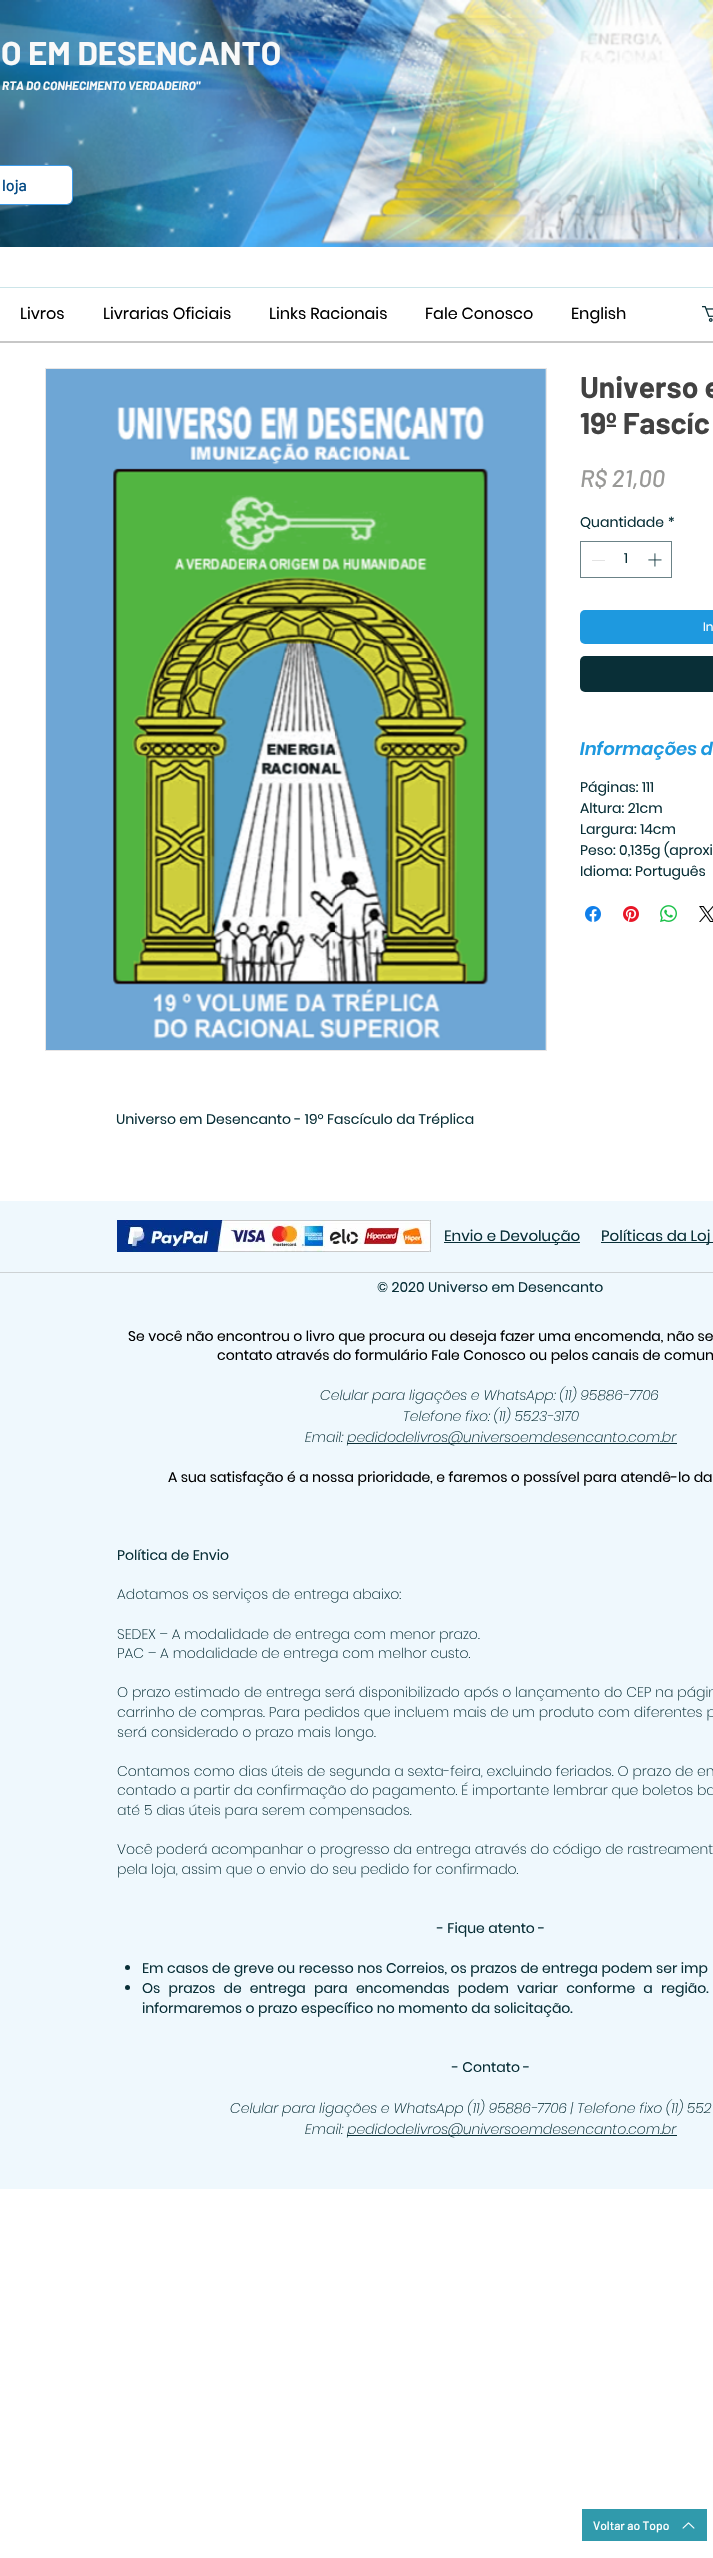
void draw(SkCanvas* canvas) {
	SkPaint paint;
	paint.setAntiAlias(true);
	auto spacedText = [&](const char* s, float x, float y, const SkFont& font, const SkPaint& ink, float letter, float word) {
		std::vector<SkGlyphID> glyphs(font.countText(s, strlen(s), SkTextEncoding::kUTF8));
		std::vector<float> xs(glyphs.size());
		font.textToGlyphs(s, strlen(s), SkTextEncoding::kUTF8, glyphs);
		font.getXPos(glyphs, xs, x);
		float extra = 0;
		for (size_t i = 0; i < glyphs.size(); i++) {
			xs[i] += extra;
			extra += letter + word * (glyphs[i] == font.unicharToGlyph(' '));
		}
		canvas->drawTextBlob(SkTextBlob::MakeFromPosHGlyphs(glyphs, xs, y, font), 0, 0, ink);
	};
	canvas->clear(0xffffffff);
	canvas->drawImageRect(SkImages::DeferredFromEncodedData(SkData::MakeFromFileName("img1.png")), SkRect::MakeXYWH(0, 0, 713, 247), SkSamplingOptions());
	SkFont f1(fontMgr->matchFamilyStyle("Barlow", SkFontStyle::Bold()), 33);
	f1.setSubpixel(true);
	paint.setColor(0xfff9f9f9);
	canvas->drawString("O EM DESENCANTO", 1, 65, f1, paint);
	SkFont f2(fontMgr->matchFamilyStyle("Barlow", SkFontStyle::BoldItalic()), 12);
	f2.setSubpixel(true);
	canvas->drawString("RTA DO CONHECIMENTO VERDADEIRO\"", 2, 90, f2, paint);
	paint.setStroke(true);
	paint.setStrokeWidth(1);
	paint.setColor(0xff3d9be9);
	canvas->drawRoundRect(SkRect::MakeXYWH(-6.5, 165.5, 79, 39), 5.5, 5.5, paint);
	paint.setStroke(false);
	paint.setColor(0xffffffff);
	canvas->drawRoundRect(SkRect::MakeXYWH(-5, 166, 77, 38), 5, 5, paint);
	SkFont f3(fontMgr->matchFamilyStyle("Barlow", SkFontStyle(500, SkFontStyle::kNormal_Width, SkFontStyle::kUpright_Slant)), 16);
	f3.setSubpixel(true);
	paint.setColor(0xff044a85);
	canvas->drawString("loja", 2, 191, f3, paint);
	paint.setColor(0xffcce5e9);
	canvas->drawRect(SkRect::MakeXYWH(0, 287, 713, 1), paint);
	SkFont f4(fontMgr->matchFamilyStyle("Poppins", SkFontStyle::Normal()), 16);
	f4.setSubpixel(true);
	paint.setColor(0xff000000);
	canvas->drawString("Livros", 20, 319, f4, paint);
	canvas->drawString("Livrarias Oficiais", 103, 319, f4, paint);
	canvas->drawString("Links Racionais", 269, 319, f4, paint);
	canvas->drawString("Fale Conosco", 425, 319, f4, paint);
	canvas->drawString("English", 571, 319, f4, paint);
	canvas->drawImageRect(SkImages::DeferredFromEncodedData(SkData::MakeFromFileName("img2.png")), SkRect::MakeXYWH(702, 306, 11, 16), SkSamplingOptions());
	paint.setColor(0xffc7c7c7);
	canvas->drawRect(SkRect::MakeXYWH(0, 341, 713, 2), paint);
	SkFont f5(fontMgr->matchFamilyStyle("Barlow", SkFontStyle::Bold()), 30);
	f5.setSubpixel(true);
	paint.setColor(0xff424242);
	canvas->drawString("Universo e", 580, 398, f5, paint);
	canvas->drawString("19º Fascíc", 580, 434, f5, paint);
	SkFont f6(fontMgr->matchFamilyStyle("Barlow", SkFontStyle(500, SkFontStyle::kNormal_Width, SkFontStyle::kItalic_Slant)), 24);
	f6.setSubpixel(true);
	paint.setColor(0xff999997);
	canvas->drawString("R$ 21,00", 580, 487, f6, paint);
	SkFont f7(fontMgr->matchFamilyStyle("Poppins", SkFontStyle::Normal()), 14);
	f7.setSubpixel(true);
	paint.setColor(0xff092f37);
	canvas->drawString("Quantidade", 580, 527, f7, paint);
	canvas->drawString("*", 668, 527, f7, paint);
	paint.setStroke(true);
	paint.setColor(0xff6b8287);
	canvas->drawRect(SkRect::MakeXYWH(580.5, 541.5, 91, 36), paint);
	paint.setStroke(false);
	paint.setColor(0xffe3e3e3);
	canvas->drawRect(SkRect::MakeXYWH(592, 560, 13, 1), paint);
	paint.setColor(0xff092f37);
	canvas->drawString("1", 624, 563, f7, paint);
	canvas->drawImageRect(SkImages::DeferredFromEncodedData(SkData::MakeFromFileName("img3.png")), SkRect::MakeXYWH(648, 553, 14, 14), SkSamplingOptions());
	paint.setColor(0xff1e99df);
	canvas->drawRoundRect(SkRect::MakeXYWH(580, 610, 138, 34), 5, 5, paint);
	SkFont f8(fontMgr->matchFamilyStyle("Poppins", SkFontStyle::Normal()), 12);
	f8.setSubpixel(true);
	paint.setColor(0xffffffff);
	canvas->drawString("In", 703, 631, f8, paint);
	paint.setColor(0xff092f37);
	canvas->drawRoundRect(SkRect::MakeXYWH(580, 656, 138, 36), 5, 5, paint);
	SkFont f9(fontMgr->matchFamilyStyle("Poppins", SkFontStyle(600, SkFontStyle::kNormal_Width, SkFontStyle::kItalic_Slant)), 18);
	f9.setSubpixel(true);
	paint.setColor(0xff1e99df);
	canvas->drawString("Informações d", 580, 755, f9, paint);
	paint.setColor(0xff092f37);
	canvas->drawString("Páginas: 111", 580, 792, f7, paint);
	canvas->drawString("Altura: 21cm", 580, 813, f7, paint);
	canvas->drawString("Largura: 14cm", 580, 834, f7, paint);
	canvas->drawString("Peso: 0,135g (aproxi", 580, 855, f7, paint);
	canvas->drawString("Idioma: Português", 580, 876, f7, paint);
	canvas->drawImageRect(SkImages::DeferredFromEncodedData(SkData::MakeFromFileName("img4.png")), SkRect::MakeXYWH(585, 906, 16, 16), SkSamplingOptions());
	canvas->drawImageRect(SkImages::DeferredFromEncodedData(SkData::MakeFromFileName("img5.png")), SkRect::MakeXYWH(623, 906, 16, 16), SkSamplingOptions());
	canvas->drawImageRect(SkImages::DeferredFromEncodedData(SkData::MakeFromFileName("img6.png")), SkRect::MakeXYWH(660, 905, 17, 17), SkSamplingOptions());
	canvas->drawImageRect(SkImages::DeferredFromEncodedData(SkData::MakeFromFileName("img7.png")), SkRect::MakeXYWH(699, 906, 14, 16), SkSamplingOptions());
	paint.setStroke(true);
	paint.setColor(0xffe8e6e6);
	canvas->drawRect(SkRect::MakeXYWH(45.5, 368.5, 501, 682), paint);
	canvas->drawImageRect(SkImages::DeferredFromEncodedData(SkData::MakeFromFileName("img8.png")), SkRect::MakeXYWH(46, 369, 500, 681), SkSamplingOptions());
	paint.setStroke(false);
	paint.setColor(0xff092f37);
	canvas->drawString("Universo em Desencanto - 19º Fascículo da Tréplica", 116, 1124, f7, paint);
	paint.setColor(0xffeff8fd);
	canvas->drawRect(SkRect::MakeXYWH(0, 1201, 713, 988), paint);
	canvas->drawImageRect(SkImages::DeferredFromEncodedData(SkData::MakeFromFileName("img9.png")), SkRect::MakeXYWH(117, 1220, 314, 32), SkSamplingOptions());
	paint.setColor(0xff092f37);
	canvas->drawRect(SkRect::MakeXYWH(444, 1242, 136, 1), paint);
	SkFont f10(fontMgr->matchFamilyStyle("Poppins", SkFontStyle::Normal()), 15);
	f10.setSubpixel(true);
	canvas->drawString("Envio e Devolução", 444, 1241, f10, paint);
	canvas->drawRect(SkRect::MakeXYWH(601, 1242, 112, 1), paint);
	canvas->drawString("Políticas da Loj", 601, 1241, f10, paint);
	paint.setColor(0xffcdd2d4);
	canvas->drawRect(SkRect::MakeXYWH(0, 1272, 713, 1), paint);
	paint.setColor(0xff092f37);
	canvas->drawString("© 2020 Universo em Desencanto", 377, 1292, f7, paint);
	paint.setColor(0xff000000);
	canvas->drawString("Se você não encontrou o livro que procura ou deseja fazer uma encomenda, não se", 128, 1341, f7, paint);
	canvas->drawString("contato através do formulário Fale Conosco ou pelos canais de comun", 217, 1360, f7, paint);
	SkFont f11(fontMgr->matchFamilyStyle("Poppins", SkFontStyle(200, SkFontStyle::kNormal_Width, SkFontStyle::kItalic_Slant)), 14);
	f11.setSubpixel(true);
	paint.setColor(0xff092f37);
	canvas->drawString("Celular para ligações e WhatsApp: (11) 95886-7706", 320, 1400, f11, paint);
	canvas->drawString("Telefone fixo: (11) 5523-3170", 403, 1421, f11, paint);
	canvas->drawString("Email:", 305, 1442, f11, paint);
	canvas->drawRect(SkRect::MakeXYWH(347, 1443, 330, 1), paint);
	canvas->drawString("pedidodelivros@universoemdesencanto.com.br", 347, 1442, f11, paint);
	paint.setColor(0xff000000);
	canvas->drawString("A sua satisfação é a nossa prioridade, e faremos o possível para atendê-lo da", 168, 1482, f7, paint);
	paint.setColor(0xff092f37);
	canvas->drawString("Política de Envio", 117, 1560, f7, paint);
	SkFont f12(fontMgr->matchFamilyStyle("Poppins", SkFontStyle(200, SkFontStyle::kNormal_Width, SkFontStyle::kUpright_Slant)), 14);
	f12.setSubpixel(true);
	canvas->drawString("Adotamos os serviços de entrega abaixo:", 117, 1599, f12, paint);
	canvas->drawString("SEDEX – A modalidade de entrega com menor prazo.", 117, 1639, f12, paint);
	canvas->drawString("PAC – A modalidade de entrega com melhor custo.", 117, 1658, f12, paint);
	canvas->drawString("O prazo estimado de entrega será disponibilizado após o lançamento do CEP na págin", 117, 1697, f12, paint);
	canvas->drawString("carrinho de compras. Para pedidos que incluem mais de um produto com diferentes p", 117, 1717, f12, paint);
	canvas->drawString("será considerado o prazo mais longo.", 117, 1737, f12, paint);
	canvas->drawString("Contamos como dias úteis de segunda a sexta-feira, excluindo feriados. O prazo de en", 117, 1776, f12, paint);
	canvas->drawString("contado a partir da confirmação do pagamento. É importante lembrar que boletos ba", 117, 1795, f12, paint);
	canvas->drawString("até 5 dias úteis para serem compensados.", 117, 1815, f12, paint);
	canvas->drawString("Você poderá acompanhar o progresso da entrega através do código de rastreament", 117, 1854, f12, paint);
	canvas->drawString("pela loja, assim que o envio do seu pedido for confirmado.", 117, 1874, f12, paint);
	canvas->drawString("- Fique atento -", 437, 1933, f7, paint);
	canvas->drawCircle(127.5, 1967.5, 2.5, paint);
	canvas->drawString("Em casos de greve ou recesso nos Correios, os prazos de entrega podem ser imp", 142, 1973, f7, paint);
	canvas->drawCircle(127.5, 1987.5, 2.5, paint);
	spacedText("Os prazos de entrega para encomendas podem variar conforme a região.", 142, 1993, f7, paint, 0, 4.75);
	canvas->drawString("informaremos o prazo específico no momento da solicitação.", 142, 2013, f7, paint);
	canvas->drawString("- Contato -", 452, 2072, f7, paint);
	canvas->drawString("Celular para ligações e WhatsApp (11) 95886-7706 | Telefone fixo (11) 552", 230, 2113, f11, paint);
	canvas->drawString("Email:", 305, 2134, f11, paint);
	canvas->drawRect(SkRect::MakeXYWH(347, 2135, 330, 1), paint);
	canvas->drawString("pedidodelivros@universoemdesencanto.com.br", 347, 2134, f11, paint);
	paint.setColor(0xff309aac);
	canvas->drawRect(SkRect::MakeXYWH(582, 2509, 125, 32), paint);
	SkFont f13(fontMgr->matchFamilyStyle("Barlow", SkFontStyle(500, SkFontStyle::kNormal_Width, SkFontStyle::kUpright_Slant)), 12);
	f13.setSubpixel(true);
	paint.setColor(0xffffffff);
	canvas->drawString("Voltar ao Topo", 593, 2530, f13, paint);
	canvas->drawImageRect(SkImages::DeferredFromEncodedData(SkData::MakeFromFileName("img10.png")), SkRect::MakeXYWH(682, 2522, 13, 7), SkSamplingOptions());
}
